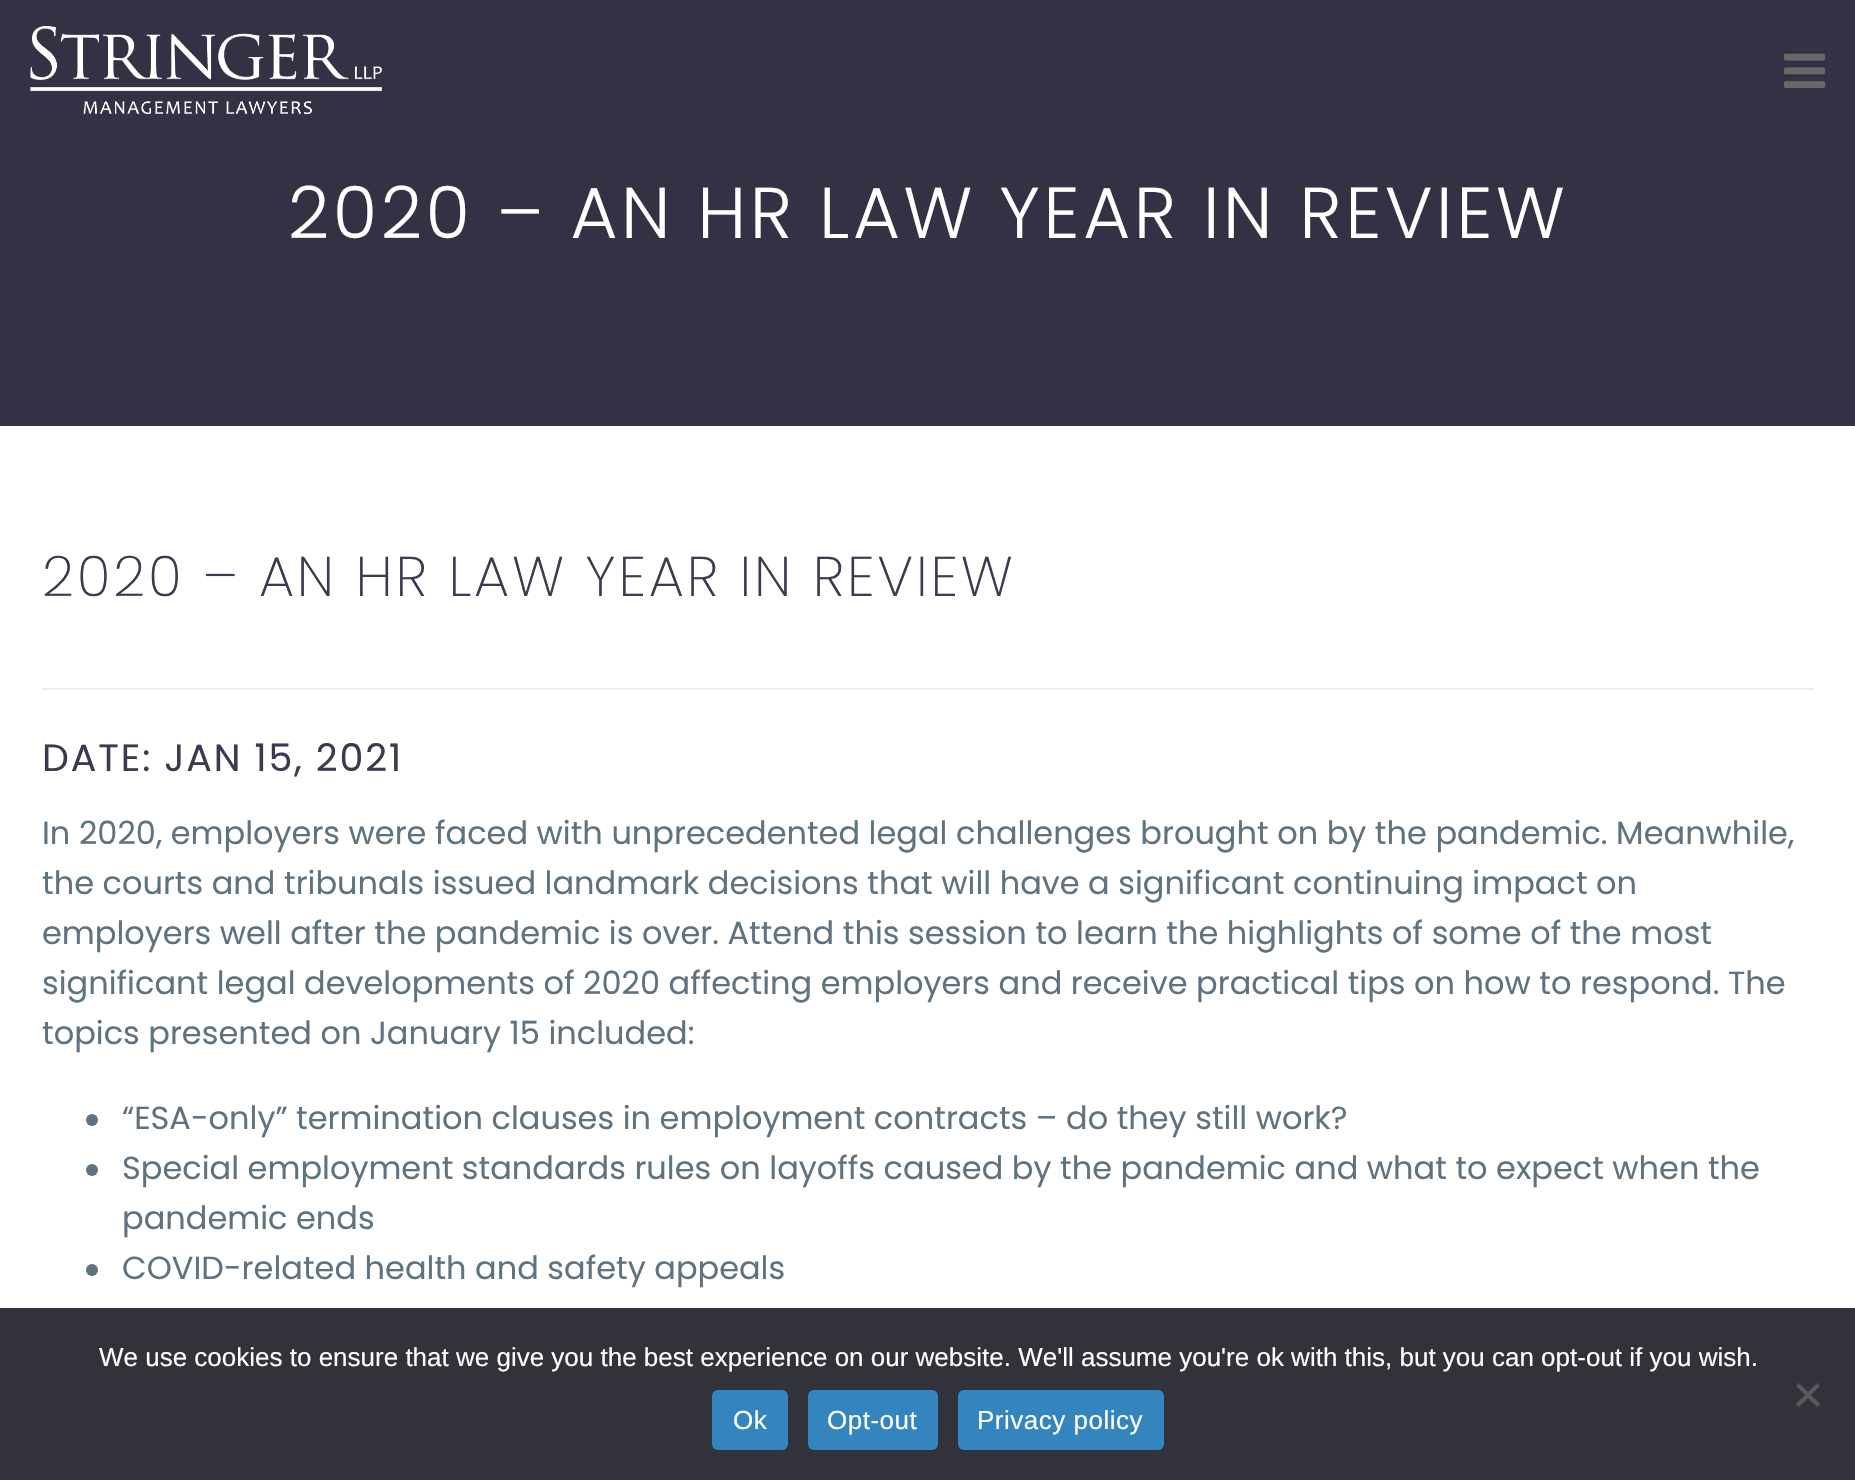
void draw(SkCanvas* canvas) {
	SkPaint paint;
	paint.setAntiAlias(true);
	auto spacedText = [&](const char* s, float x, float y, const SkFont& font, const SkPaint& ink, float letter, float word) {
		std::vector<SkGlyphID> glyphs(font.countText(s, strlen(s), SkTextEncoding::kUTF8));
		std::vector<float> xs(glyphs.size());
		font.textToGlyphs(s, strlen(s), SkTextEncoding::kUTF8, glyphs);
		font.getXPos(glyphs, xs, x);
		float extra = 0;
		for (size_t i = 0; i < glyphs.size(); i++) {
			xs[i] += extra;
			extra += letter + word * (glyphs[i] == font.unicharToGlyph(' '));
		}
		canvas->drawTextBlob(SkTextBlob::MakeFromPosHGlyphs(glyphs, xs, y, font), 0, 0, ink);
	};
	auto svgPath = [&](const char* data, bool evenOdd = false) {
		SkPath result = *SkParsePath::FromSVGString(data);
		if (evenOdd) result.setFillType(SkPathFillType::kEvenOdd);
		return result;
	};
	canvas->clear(0xffffffff);
	paint.setColor(0xff333144);
	canvas->drawRect(SkRect::MakeXYWH(0, 0, 1855, 426), paint);
	canvas->drawImageRect(SkImages::DeferredFromEncodedData(SkData::MakeFromFileName("img1.png")), SkRect::MakeXYWH(30, 26, 352, 88), SkSamplingOptions());
	canvas->drawImageRect(SkImages::DeferredFromEncodedData(SkData::MakeFromFileName("img2.png")), SkRect::MakeXYWH(1784, 53, 42, 35), SkSamplingOptions());
	SkFont f1(fontMgr->matchFamilyStyle("Poppins", SkFontStyle(300, SkFontStyle::kNormal_Width, SkFontStyle::kUpright_Slant)), 72);
	f1.setSubpixel(true);
	paint.setColor(0xffffffff);
	spacedText("2020 – AN HR LAW YEAR IN REVIEW", 288, 238, f1, paint, 3.6, 0);
	SkFont f2(fontMgr->matchFamilyStyle("Poppins", SkFontStyle(200, SkFontStyle::kNormal_Width, SkFontStyle::kUpright_Slant)), 56);
	f2.setSubpixel(true);
	paint.setColor(0xff3c3950);
	spacedText("2020 – AN HR LAW YEAR IN REVIEW", 42, 596, f2, paint, 2.8, 0);
	paint.setColor(0xffeeeeee);
	canvas->drawRect(SkRect::MakeXYWH(42, 688, 1772, 2), paint);
	SkFont f3(fontMgr->matchFamilyStyle("Poppins", SkFontStyle::Normal()), 38);
	f3.setSubpixel(true);
	paint.setColor(0xff3c3950);
	spacedText("DATE: JAN 15, 2021", 42, 771, f3, paint, 1.9, 0);
	SkFont f4(fontMgr->matchFamilyStyle("Poppins", SkFontStyle::Normal()), 32);
	f4.setSubpixel(true);
	paint.setColor(0xff5f727f);
	canvas->drawString("In 2020, employers were faced with unprecedented legal challenges brought on by the pandemic. Meanwhile,", 42, 844, f4, paint);
	canvas->drawString("the courts and tribunals issued landmark decisions that will have a significant continuing impact on", 42, 894, f4, paint);
	canvas->drawString("employers well after the pandemic is over. Attend this session to learn the highlights of some of the most", 42, 944, f4, paint);
	canvas->drawString("significant legal developments of 2020 affecting employers and receive practical tips on how to respond. The", 42, 994, f4, paint);
	canvas->drawString("topics presented on January 15 included:", 42, 1044, f4, paint);
	canvas->drawCircle(92, 1120, 6, paint);
	canvas->drawString("“ESA-only” termination clauses in employment contracts – do they still work?", 122, 1129, f4, paint);
	canvas->drawCircle(92, 1170, 6, paint);
	canvas->drawString("Special employment standards rules on layoffs caused by the pandemic and what to expect when the", 122, 1179, f4, paint);
	canvas->drawString("pandemic ends", 122, 1229, f4, paint);
	canvas->drawCircle(92, 1270, 6, paint);
	canvas->drawString("COVID-related health and safety appeals", 122, 1279, f4, paint);
	paint.setColor(0xff32323a);
	canvas->drawRect(SkRect::MakeXYWH(0, 1308, 1855, 172), paint);
	SkFont f5(fontMgr->matchFamilyStyle("Liberation Sans", SkFontStyle::Normal()), 26);
	f5.setSubpixel(true);
	paint.setColor(0xffffffff);
	canvas->drawString("We use cookies to ensure that we give you the best experience on our website. We'll assume you're ok with this, but you can opt-out if you wish.", 99, 1366, f5, paint);
	paint.setColor(0xff59595d);
	canvas->drawPath(svgPath("M1817 1383L1820 1386L1799 1407L1796 1404Z"), paint);
	canvas->drawPath(svgPath("M1796 1386L1799 1383L1820 1404L1817 1407Z"), paint);
	paint.setColor(0xff3485be);
	canvas->drawRoundRect(SkRect::MakeXYWH(712, 1390, 76, 60), 6, 6, paint);
	paint.setColor(0xffffffff);
	spacedText("Ok", 733, 1429, f5, paint, 0.5, 0);
	paint.setColor(0xff3485be);
	canvas->drawRoundRect(SkRect::MakeXYWH(808, 1390, 130, 60), 6, 6, paint);
	paint.setColor(0xffffffff);
	spacedText("Opt-out", 827, 1429, f5, paint, 0.5, 0);
	paint.setColor(0xff3485be);
	canvas->drawRoundRect(SkRect::MakeXYWH(958, 1390, 206, 60), 6, 6, paint);
	paint.setColor(0xffffffff);
	spacedText("Privacy policy", 977, 1429, f5, paint, 0.5, 0);
}
